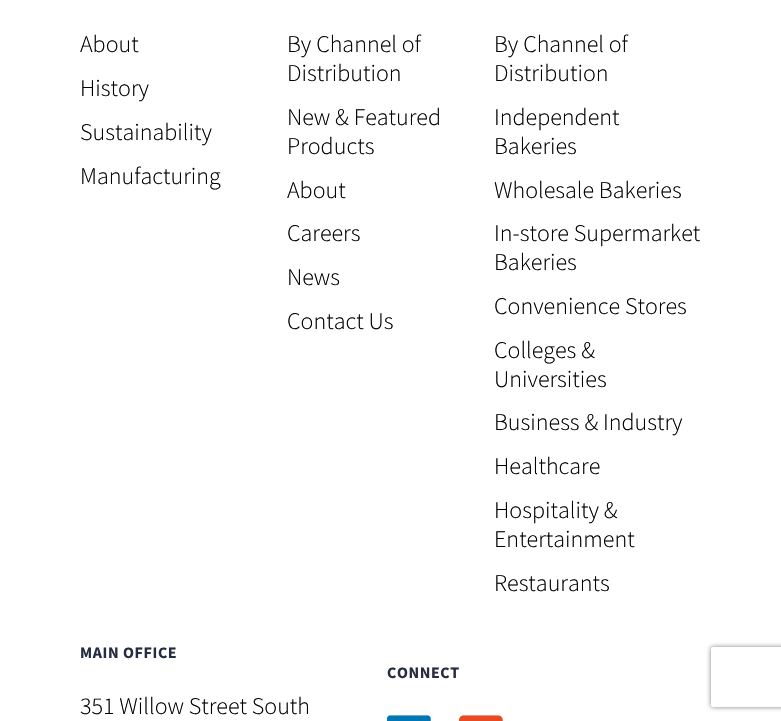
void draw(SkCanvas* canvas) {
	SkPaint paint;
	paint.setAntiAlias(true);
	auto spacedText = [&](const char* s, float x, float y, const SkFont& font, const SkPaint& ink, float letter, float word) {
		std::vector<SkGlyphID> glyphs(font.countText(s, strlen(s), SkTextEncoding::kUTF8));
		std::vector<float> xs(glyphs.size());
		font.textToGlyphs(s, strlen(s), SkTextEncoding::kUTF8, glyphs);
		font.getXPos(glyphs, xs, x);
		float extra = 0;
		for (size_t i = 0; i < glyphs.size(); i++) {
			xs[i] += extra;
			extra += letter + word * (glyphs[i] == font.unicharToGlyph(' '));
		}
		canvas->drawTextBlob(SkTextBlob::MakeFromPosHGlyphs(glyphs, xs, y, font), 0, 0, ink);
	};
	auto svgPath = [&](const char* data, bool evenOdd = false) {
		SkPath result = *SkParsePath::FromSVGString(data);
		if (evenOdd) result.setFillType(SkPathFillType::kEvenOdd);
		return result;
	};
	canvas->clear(0xffffffff);
	SkFont f1(fontMgr->matchFamilyStyle("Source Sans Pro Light", SkFontStyle(300, SkFontStyle::kNormal_Width, SkFontStyle::kUpright_Slant)), 24);
	f1.setSubpixel(true);
	paint.setColor(0xff000000);
	canvas->drawString("About", 80, 52, f1, paint);
	canvas->drawString("History", 80, 96, f1, paint);
	canvas->drawString("Sustainability", 80, 140, f1, paint);
	canvas->drawString("Manufacturing", 80, 184, f1, paint);
	canvas->drawString("By Channel of", 287, 52, f1, paint);
	canvas->drawString("Distribution", 287, 81, f1, paint);
	canvas->drawString("New & Featured", 287, 125, f1, paint);
	canvas->drawString("Products", 287, 154, f1, paint);
	canvas->drawString("About", 287, 198, f1, paint);
	canvas->drawString("Careers", 287, 241, f1, paint);
	canvas->drawString("News", 287, 285, f1, paint);
	canvas->drawString("Contact Us", 287, 329, f1, paint);
	canvas->drawString("By Channel of", 494, 52, f1, paint);
	canvas->drawString("Distribution", 494, 81, f1, paint);
	canvas->drawString("Independent", 494, 125, f1, paint);
	canvas->drawString("Bakeries", 494, 154, f1, paint);
	canvas->drawString("Wholesale Bakeries", 494, 198, f1, paint);
	canvas->drawString("In-store Supermarket", 494, 241, f1, paint);
	canvas->drawString("Bakeries", 494, 270, f1, paint);
	canvas->drawString("Convenience Stores", 494, 314, f1, paint);
	canvas->drawString("Colleges &", 494, 358, f1, paint);
	canvas->drawString("Universities", 494, 387, f1, paint);
	canvas->drawString("Business & Industry", 494, 430, f1, paint);
	canvas->drawString("Healthcare", 494, 474, f1, paint);
	canvas->drawString("Hospitality &", 494, 518, f1, paint);
	canvas->drawString("Entertainment", 494, 547, f1, paint);
	canvas->drawString("Restaurants", 494, 591, f1, paint);
	SkFont f2(fontMgr->matchFamilyStyle("Source Sans Pro", SkFontStyle::Bold()), 16);
	f2.setSubpixel(true);
	paint.setColor(0xff242d41);
	spacedText("MAIN OFFICE", 80, 658, f2, paint, 0.6, 0);
	paint.setColor(0xff000000);
	canvas->drawString("351 Willow Street South", 80, 714, f1, paint);
	paint.setColor(0xff242d41);
	spacedText("CONNECT", 387, 678, f2, paint, 0.6, 0);
	canvas->drawImageRect(SkImages::DeferredFromEncodedData(SkData::MakeFromFileName("img1.png")), SkRect::MakeXYWH(387, 715, 44, 6), SkSamplingOptions());
	canvas->drawImageRect(SkImages::DeferredFromEncodedData(SkData::MakeFromFileName("img2.png")), SkRect::MakeXYWH(459, 715, 44, 6), SkSamplingOptions());
	canvas->save();
	canvas->clipPath(svgPath("M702 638H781V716H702ZM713 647H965C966 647 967 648 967 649V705C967 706 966 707 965 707H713C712 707 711 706 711 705V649C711 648 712 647 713 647Z", true), true);
	paint.setColor(0xff808080);
	paint.setMaskFilter(SkMaskFilter::MakeBlur(kNormal_SkBlurStyle, 2.5));
	canvas->drawRoundRect(SkRect::MakeXYWH(711, 647, 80, 60), 2, 2, paint);
	paint.setMaskFilter(nullptr);
	canvas->restore();
}
